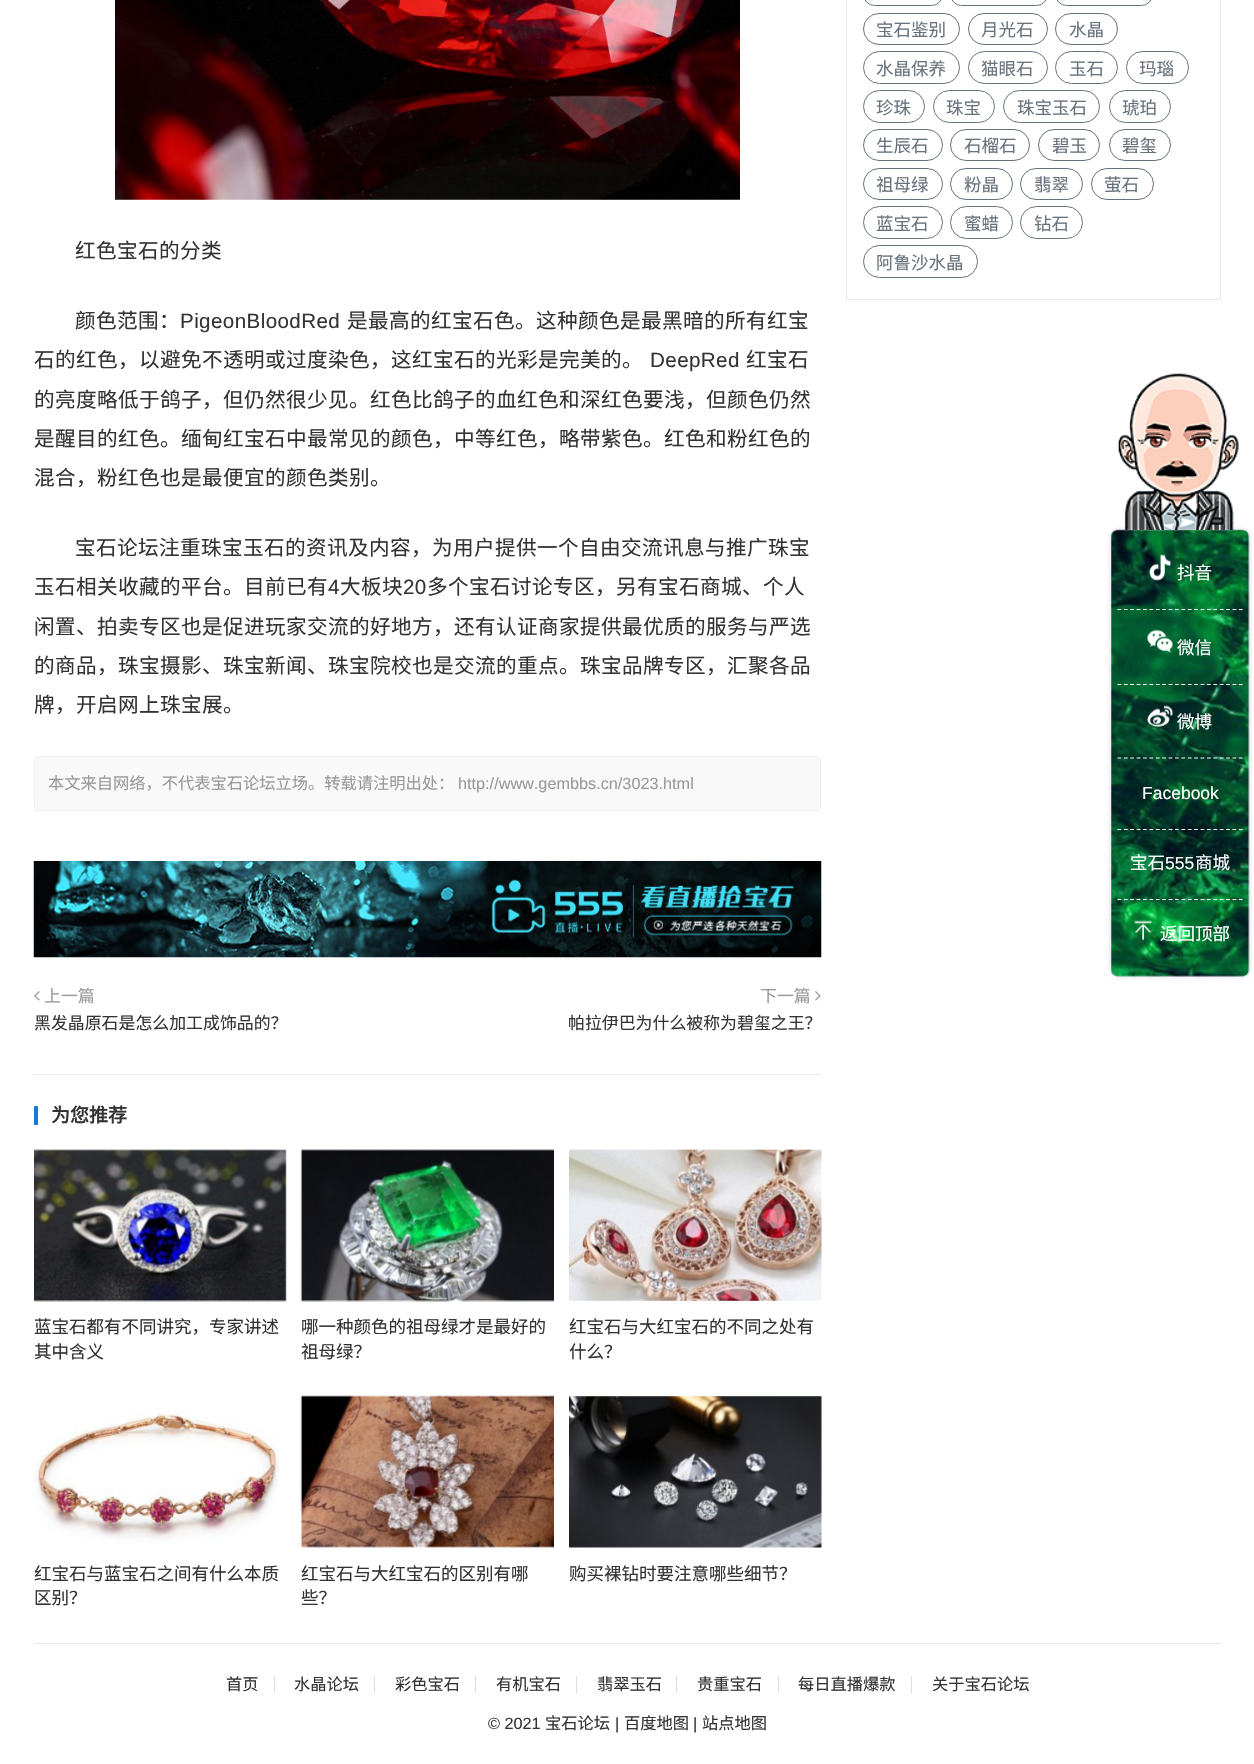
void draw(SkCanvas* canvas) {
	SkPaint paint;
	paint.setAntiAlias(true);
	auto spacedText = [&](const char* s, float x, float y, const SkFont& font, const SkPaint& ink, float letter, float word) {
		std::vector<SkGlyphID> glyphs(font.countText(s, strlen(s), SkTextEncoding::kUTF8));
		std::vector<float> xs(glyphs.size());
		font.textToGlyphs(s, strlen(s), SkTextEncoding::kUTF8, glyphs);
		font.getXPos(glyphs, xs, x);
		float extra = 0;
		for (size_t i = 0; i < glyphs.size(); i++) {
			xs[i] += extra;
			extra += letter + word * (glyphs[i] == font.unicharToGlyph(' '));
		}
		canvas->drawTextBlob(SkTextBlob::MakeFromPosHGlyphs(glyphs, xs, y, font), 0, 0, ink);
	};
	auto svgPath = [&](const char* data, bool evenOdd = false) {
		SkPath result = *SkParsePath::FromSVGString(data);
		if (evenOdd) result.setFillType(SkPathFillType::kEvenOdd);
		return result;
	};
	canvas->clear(0xffffffff);
	paint.setStroke(true);
	paint.setStrokeWidth(1);
	paint.setColor(0xffe9e9e9);
	canvas->drawRect(SkRect::MakeXYWH(846.5, -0.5, 374, 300), paint);
	paint.setColor(0xff68727d);
	canvas->drawRoundRect(SkRect::MakeXYWH(863.5, -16.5, 79, 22), 15.5, 15.5, paint);
	canvas->drawRoundRect(SkRect::MakeXYWH(950.5, -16.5, 97, 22), 15.5, 15.5, paint);
	canvas->drawRoundRect(SkRect::MakeXYWH(1055.5, -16.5, 97, 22), 15.5, 15.5, paint);
	canvas->drawRoundRect(SkRect::MakeXYWH(863.5, 13.5, 96, 31), 15.5, 15.5, paint);
	SkFont f1(fontMgr->matchFamilyStyle("Noto Sans CJK SC", SkFontStyle::Normal()), 17.5);
	f1.setSubpixel(true);
	paint.setStroke(false);
	canvas->drawString("宝石鉴别", 876, 36, f1, paint);
	paint.setStroke(true);
	canvas->drawRoundRect(SkRect::MakeXYWH(968.5, 13.5, 79, 31), 15.5, 15.5, paint);
	paint.setStroke(false);
	canvas->drawString("月光石", 981, 36, f1, paint);
	paint.setStroke(true);
	canvas->drawRoundRect(SkRect::MakeXYWH(1055.5, 13.5, 62, 31), 15.5, 15.5, paint);
	paint.setStroke(false);
	canvas->drawString("水晶", 1069, 36, f1, paint);
	paint.setStroke(true);
	canvas->drawRoundRect(SkRect::MakeXYWH(863.5, 51.5, 96, 32), 16, 16, paint);
	paint.setStroke(false);
	canvas->drawString("水晶保养", 876, 75, f1, paint);
	paint.setStroke(true);
	canvas->drawRoundRect(SkRect::MakeXYWH(968.5, 51.5, 79, 32), 16, 16, paint);
	paint.setStroke(false);
	canvas->drawString("猫眼石", 981, 75, f1, paint);
	paint.setStroke(true);
	canvas->drawRoundRect(SkRect::MakeXYWH(1055.5, 51.5, 62, 32), 16, 16, paint);
	paint.setStroke(false);
	canvas->drawString("玉石", 1069, 75, f1, paint);
	paint.setStroke(true);
	canvas->drawRoundRect(SkRect::MakeXYWH(1126.5, 51.5, 62, 32), 16, 16, paint);
	paint.setStroke(false);
	canvas->drawString("玛瑙", 1139, 75, f1, paint);
	paint.setStroke(true);
	canvas->drawRoundRect(SkRect::MakeXYWH(863.5, 90.5, 61, 32), 16, 16, paint);
	paint.setStroke(false);
	canvas->drawString("珍珠", 876, 114, f1, paint);
	paint.setStroke(true);
	canvas->drawRoundRect(SkRect::MakeXYWH(933.5, 90.5, 61, 32), 16, 16, paint);
	paint.setStroke(false);
	canvas->drawString("珠宝", 946, 114, f1, paint);
	paint.setStroke(true);
	canvas->drawRoundRect(SkRect::MakeXYWH(1003.5, 90.5, 96, 32), 16, 16, paint);
	paint.setStroke(false);
	canvas->drawString("珠宝玉石", 1017, 114, f1, paint);
	paint.setStroke(true);
	canvas->drawRoundRect(SkRect::MakeXYWH(1109.5, 90.5, 61, 32), 16, 16, paint);
	paint.setStroke(false);
	canvas->drawString("琥珀", 1122, 114, f1, paint);
	paint.setStroke(true);
	canvas->drawRoundRect(SkRect::MakeXYWH(863.5, 129.5, 79, 31), 15.5, 15.5, paint);
	paint.setStroke(false);
	canvas->drawString("生辰石", 876, 152, f1, paint);
	paint.setStroke(true);
	canvas->drawRoundRect(SkRect::MakeXYWH(950.5, 129.5, 79, 31), 15.5, 15.5, paint);
	paint.setStroke(false);
	canvas->drawString("石榴石", 964, 152, f1, paint);
	paint.setStroke(true);
	canvas->drawRoundRect(SkRect::MakeXYWH(1038.5, 129.5, 61, 31), 15.5, 15.5, paint);
	paint.setStroke(false);
	canvas->drawString("碧玉", 1052, 152, f1, paint);
	paint.setStroke(true);
	canvas->drawRoundRect(SkRect::MakeXYWH(1109.5, 129.5, 61, 31), 15.5, 15.5, paint);
	paint.setStroke(false);
	canvas->drawString("碧玺", 1122, 152, f1, paint);
	paint.setStroke(true);
	canvas->drawRoundRect(SkRect::MakeXYWH(863.5, 168.5, 79, 31), 15.5, 15.5, paint);
	paint.setStroke(false);
	canvas->drawString("祖母绿", 876, 191, f1, paint);
	paint.setStroke(true);
	canvas->drawRoundRect(SkRect::MakeXYWH(950.5, 168.5, 62, 31), 15.5, 15.5, paint);
	paint.setStroke(false);
	canvas->drawString("粉晶", 964, 191, f1, paint);
	paint.setStroke(true);
	canvas->drawRoundRect(SkRect::MakeXYWH(1020.5, 168.5, 62, 31), 15.5, 15.5, paint);
	paint.setStroke(false);
	canvas->drawString("翡翠", 1034, 191, f1, paint);
	paint.setStroke(true);
	canvas->drawRoundRect(SkRect::MakeXYWH(1091.5, 168.5, 62, 31), 15.5, 15.5, paint);
	paint.setStroke(false);
	canvas->drawString("萤石", 1104, 191, f1, paint);
	paint.setStroke(true);
	canvas->drawRoundRect(SkRect::MakeXYWH(863.5, 206.5, 79, 32), 16, 16, paint);
	paint.setStroke(false);
	canvas->drawString("蓝宝石", 876, 230, f1, paint);
	paint.setStroke(true);
	canvas->drawRoundRect(SkRect::MakeXYWH(950.5, 206.5, 62, 32), 16, 16, paint);
	paint.setStroke(false);
	canvas->drawString("蜜蜡", 964, 230, f1, paint);
	paint.setStroke(true);
	canvas->drawRoundRect(SkRect::MakeXYWH(1020.5, 206.5, 62, 32), 16, 16, paint);
	paint.setStroke(false);
	canvas->drawString("钻石", 1034, 230, f1, paint);
	paint.setStroke(true);
	canvas->drawRoundRect(SkRect::MakeXYWH(863.5, 245.5, 114, 32), 16, 16, paint);
	paint.setStroke(false);
	canvas->drawString("阿鲁沙水晶", 876, 269, f1, paint);
	canvas->drawImageRect(SkImages::DeferredFromEncodedData(SkData::MakeFromFileName("img1.png")), SkRect::MakeXYWH(115, 0, 625, 200), SkSamplingOptions());
	SkFont f2(fontMgr->matchFamilyStyle("Noto Sans CJK SC", SkFontStyle::Normal()), 20.6);
	f2.setSubpixel(true);
	paint.setColor(0xff333333);
	spacedText("红色宝石的分类", 75, 258, f2, paint, 0.4, 0);
	spacedText("颜色范围：", 75, 328, f2, paint, 0.4, 0);
	SkFont f3(fontMgr->matchFamilyStyle("Liberation Sans", SkFontStyle::Normal()), 20.6);
	f3.setSubpixel(true);
	spacedText("PigeonBloodRed", 180, 328, f3, paint, 0.4, 0);
	spacedText("是最高的红宝石色。这种颜色是最黑暗的所有红宝", 347, 328, f2, paint, 0.4, 0);
	spacedText("石的红色，以避免不透明或过度染色，这红宝石的光彩是完美的。", 34, 367, f2, paint, 0.4, 0);
	spacedText("DeepRed", 650, 367, f3, paint, 0.4, 0);
	spacedText("红宝石", 746, 367, f2, paint, 0.4, 0);
	spacedText("的亮度略低于鸽子，但仍然很少见。红色比鸽子的血红色和深红色要浅，但颜色仍然", 34, 407, f2, paint, 0.4, 0);
	spacedText("是醒目的红色。缅甸红宝石中最常见的颜色，中等红色，略带紫色。红色和粉红色的", 34, 446, f2, paint, 0.4, 0);
	spacedText("混合，粉红色也是最便宜的颜色类别。", 34, 485, f2, paint, 0.4, 0);
	spacedText("宝石论坛注重珠宝玉石的资讯及内容，为用户提供一个自由交流讯息与推广珠宝", 75, 555, f2, paint, 0.4, 0);
	spacedText("玉石相关收藏的平台。目前已有", 34, 594, f2, paint, 0.4, 0);
	spacedText("4", 328, 594, f3, paint, 0.4, 0);
	spacedText("大板块", 340, 594, f2, paint, 0.4, 0);
	spacedText("20", 403, 594, f3, paint, 0.4, 0);
	spacedText("多个宝石讨论专区，另有宝石商城、个人", 427, 594, f2, paint, 0.4, 0);
	spacedText("闲置、拍卖专区也是促进玩家交流的好地方，还有认证商家提供最优质的服务与严选", 34, 634, f2, paint, 0.4, 0);
	spacedText("的商品，珠宝摄影、珠宝新闻、珠宝院校也是交流的重点。珠宝品牌专区，汇聚各品", 34, 673, f2, paint, 0.4, 0);
	spacedText("牌，开启网上珠宝展。", 34, 712, f2, paint, 0.4, 0);
	paint.setColor(0xfff9f9f9);
	canvas->drawRoundRect(SkRect::MakeXYWH(34.5, 756.5, 786, 54), 3.5, 3.5, paint);
	paint.setStroke(true);
	paint.setColor(0xffefefef);
	canvas->drawRoundRect(SkRect::MakeXYWH(34.5, 756.5, 786, 54), 3.5, 3.5, paint);
	SkFont f4(fontMgr->matchFamilyStyle("Noto Sans CJK SC", SkFontStyle::Normal()), 16.25);
	f4.setSubpixel(true);
	paint.setStroke(false);
	paint.setColor(0xff999999);
	canvas->drawString("本文来自网络，不代表宝石论坛立场。转载请注明出处：", 48, 789, f4, paint);
	SkFont f5(fontMgr->matchFamilyStyle("Liberation Sans", SkFontStyle::Normal()), 16.25);
	f5.setSubpixel(true);
	canvas->drawString("http://www.gembbs.cn/3023.html", 458, 789, f5, paint);
	canvas->drawImageRect(SkImages::DeferredFromEncodedData(SkData::MakeFromFileName("img2.png")), SkRect::MakeXYWH(33, 861, 789, 97), SkSamplingOptions());
	canvas->drawImageRect(SkImages::DeferredFromEncodedData(SkData::MakeFromFileName("img3.png")), SkRect::MakeXYWH(34, 991, 6, 10), SkSamplingOptions());
	SkFont f6(fontMgr->matchFamilyStyle("Noto Sans CJK SC", SkFontStyle::Normal()), 16.9);
	f6.setSubpixel(true);
	canvas->drawString("上一篇", 44, 1002, f6, paint);
	paint.setColor(0xff333333);
	canvas->drawString("黑发晶原石是怎么加工成饰品的？", 34, 1029, f6, paint);
	paint.setColor(0xff999999);
	canvas->drawString("下一篇", 760, 1002, f6, paint);
	canvas->drawImageRect(SkImages::DeferredFromEncodedData(SkData::MakeFromFileName("img4.png")), SkRect::MakeXYWH(815, 991, 6, 10), SkSamplingOptions());
	paint.setColor(0xff333333);
	canvas->drawString("帕拉伊巴为什么被称为碧玺之王？", 568, 1029, f6, paint);
	paint.setColor(0xffe9e9e9);
	canvas->drawRect(SkRect::MakeXYWH(34, 1074, 787, 1), paint);
	paint.setColor(0xff1479d7);
	canvas->drawRoundRect(SkRect::MakeXYWH(34, 1106, 4, 19), 1, 1, paint);
	SkFont f7(fontMgr->matchFamilyStyle("Noto Sans CJK SC", SkFontStyle::Bold()), 19);
	f7.setSubpixel(true);
	paint.setColor(0xff333333);
	canvas->drawString("为您推荐", 51, 1122, f7, paint);
	canvas->drawImageRect(SkImages::DeferredFromEncodedData(SkData::MakeFromFileName("img5.png")), SkRect::MakeXYWH(34, 1149, 253, 153), SkSamplingOptions());
	canvas->drawString("蓝宝石都有不同讲究，专家讲述", 34, 1333, f1, paint);
	canvas->drawString("其中含义", 34, 1358, f1, paint);
	canvas->drawImageRect(SkImages::DeferredFromEncodedData(SkData::MakeFromFileName("img6.png")), SkRect::MakeXYWH(300, 1149, 254, 153), SkSamplingOptions());
	canvas->drawString("哪一种颜色的祖母绿才是最好的", 301, 1333, f1, paint);
	canvas->drawString("祖母绿？", 301, 1358, f1, paint);
	canvas->drawImageRect(SkImages::DeferredFromEncodedData(SkData::MakeFromFileName("img7.png")), SkRect::MakeXYWH(569, 1149, 253, 152), SkSamplingOptions());
	canvas->drawString("红宝石与大红宝石的不同之处有", 569, 1333, f1, paint);
	canvas->drawString("什么？", 569, 1358, f1, paint);
	canvas->drawImageRect(SkImages::DeferredFromEncodedData(SkData::MakeFromFileName("img8.png")), SkRect::MakeXYWH(34, 1409, 245, 135), SkSamplingOptions());
	canvas->drawString("红宝石与蓝宝石之间有什么本质", 34, 1580, f1, paint);
	canvas->drawString("区别？", 34, 1604, f1, paint);
	canvas->drawImageRect(SkImages::DeferredFromEncodedData(SkData::MakeFromFileName("img9.png")), SkRect::MakeXYWH(300, 1395, 254, 153), SkSamplingOptions());
	canvas->drawString("红宝石与大红宝石的区别有哪", 301, 1580, f1, paint);
	canvas->drawString("些？", 301, 1604, f1, paint);
	canvas->drawImageRect(SkImages::DeferredFromEncodedData(SkData::MakeFromFileName("img10.png")), SkRect::MakeXYWH(569, 1396, 253, 152), SkSamplingOptions());
	canvas->drawString("购买裸钻时要注意哪些细节？", 569, 1580, f1, paint);
	paint.setColor(0xffe9e9e9);
	canvas->drawRect(SkRect::MakeXYWH(34, 1643, 1187, 1), paint);
	paint.setColor(0xffdddddd);
	canvas->drawRect(SkRect::MakeXYWH(274, 1676, 1, 17), paint);
	paint.setColor(0xff333333);
	canvas->drawString("首页", 226, 1690, f4, paint);
	paint.setColor(0xffdddddd);
	canvas->drawRect(SkRect::MakeXYWH(374, 1676, 1, 17), paint);
	paint.setColor(0xff333333);
	canvas->drawString("水晶论坛", 294, 1690, f4, paint);
	paint.setColor(0xffdddddd);
	canvas->drawRect(SkRect::MakeXYWH(475, 1676, 1, 17), paint);
	paint.setColor(0xff333333);
	canvas->drawString("彩色宝石", 395, 1690, f4, paint);
	paint.setColor(0xffdddddd);
	canvas->drawRect(SkRect::MakeXYWH(576, 1676, 1, 17), paint);
	paint.setColor(0xff333333);
	canvas->drawString("有机宝石", 496, 1690, f4, paint);
	paint.setColor(0xffdddddd);
	canvas->drawRect(SkRect::MakeXYWH(676, 1676, 1, 17), paint);
	paint.setColor(0xff333333);
	canvas->drawString("翡翠玉石", 597, 1690, f4, paint);
	paint.setColor(0xffdddddd);
	canvas->drawRect(SkRect::MakeXYWH(778, 1676, 1, 17), paint);
	paint.setColor(0xff333333);
	canvas->drawString("贵重宝石", 697, 1690, f4, paint);
	paint.setColor(0xffdddddd);
	canvas->drawRect(SkRect::MakeXYWH(911, 1676, 1, 17), paint);
	paint.setColor(0xff333333);
	canvas->drawString("每日直播爆款", 798, 1690, f4, paint);
	canvas->drawString("关于宝石论坛", 932, 1690, f4, paint);
	canvas->drawString("© 2021", 488, 1729, f5, paint);
	canvas->drawString("宝石论坛", 545, 1729, f4, paint);
	canvas->drawString("|", 615, 1729, f5, paint);
	canvas->drawString("百度地图", 624, 1729, f4, paint);
	canvas->drawString("|", 693, 1729, f5, paint);
	canvas->drawString("站点地图", 702, 1729, f4, paint);
	paint.setColor(0x33644396);
	paint.setMaskFilter(SkMaskFilter::MakeBlur(kNormal_SkBlurStyle, 3));
	canvas->drawRoundRect(SkRect::MakeXYWH(1111, 530, 138, 446), 6, 6, paint);
	paint.setMaskFilter(nullptr);
	canvas->drawImageRect(SkImages::DeferredFromEncodedData(SkData::MakeFromFileName("img11.png")), SkRect::MakeXYWH(1111, 529, 139, 448), SkSamplingOptions());
	canvas->drawImageRect(SkImages::DeferredFromEncodedData(SkData::MakeFromFileName("img12.png")), SkRect::MakeXYWH(1117, 373, 122, 157), SkSamplingOptions());
	paint.setStroke(true);
	paint.setStrokeWidth(1.2);
	paint.setColor(0xffffffff);
	paint.setPathEffect(SkDashPathEffect::Make({{3.75f, 2.64f}}, 0));
	canvas->drawPath(svgPath("M1117.5 609.5H1242.5"), paint);
	paint.setPathEffect(nullptr);
	canvas->drawImageRect(SkImages::DeferredFromEncodedData(SkData::MakeFromFileName("img13.png")), SkRect::MakeXYWH(1149, 554, 22, 27), SkSamplingOptions());
	paint.setStroke(false);
	canvas->drawString("抖音", 1177, 579, f1, paint);
	paint.setStroke(true);
	paint.setPathEffect(SkDashPathEffect::Make({{3.75f, 2.64f}}, 0));
	canvas->drawPath(svgPath("M1117.5 684.5H1242.5"), paint);
	paint.setPathEffect(nullptr);
	canvas->drawImageRect(SkImages::DeferredFromEncodedData(SkData::MakeFromFileName("img14.png")), SkRect::MakeXYWH(1147, 629, 26, 24), SkSamplingOptions());
	paint.setStroke(false);
	canvas->drawString("微信", 1177, 654, f1, paint);
	paint.setStroke(true);
	paint.setPathEffect(SkDashPathEffect::Make({{3.75f, 2.64f}}, 0));
	canvas->drawPath(svgPath("M1117.5 758H1242.5"), paint);
	paint.setPathEffect(nullptr);
	canvas->drawImageRect(SkImages::DeferredFromEncodedData(SkData::MakeFromFileName("img15.png")), SkRect::MakeXYWH(1147, 705, 26, 22), SkSamplingOptions());
	paint.setStroke(false);
	canvas->drawString("微博", 1177, 728, f1, paint);
	paint.setStroke(true);
	paint.setPathEffect(SkDashPathEffect::Make({{3.75f, 2.64f}}, 0));
	canvas->drawPath(svgPath("M1117.5 829.5H1242.5"), paint);
	paint.setPathEffect(nullptr);
	SkFont f8(fontMgr->matchFamilyStyle("Liberation Sans", SkFontStyle::Normal()), 17.5);
	f8.setSubpixel(true);
	paint.setStroke(false);
	canvas->drawString("Facebook", 1142, 799, f8, paint);
	paint.setStroke(true);
	paint.setPathEffect(SkDashPathEffect::Make({{3.75f, 2.64f}}, 0));
	canvas->drawPath(svgPath("M1117.5 899.5H1242.5"), paint);
	paint.setPathEffect(nullptr);
	paint.setStroke(false);
	canvas->drawString("宝石", 1130, 869, f1, paint);
	canvas->drawString("555", 1165, 869, f8, paint);
	canvas->drawString("商城", 1195, 869, f1, paint);
	canvas->drawImageRect(SkImages::DeferredFromEncodedData(SkData::MakeFromFileName("img16.png")), SkRect::MakeXYWH(1134, 920, 18, 21), SkSamplingOptions());
	canvas->drawString("返回顶部", 1160, 940, f1, paint);
}
